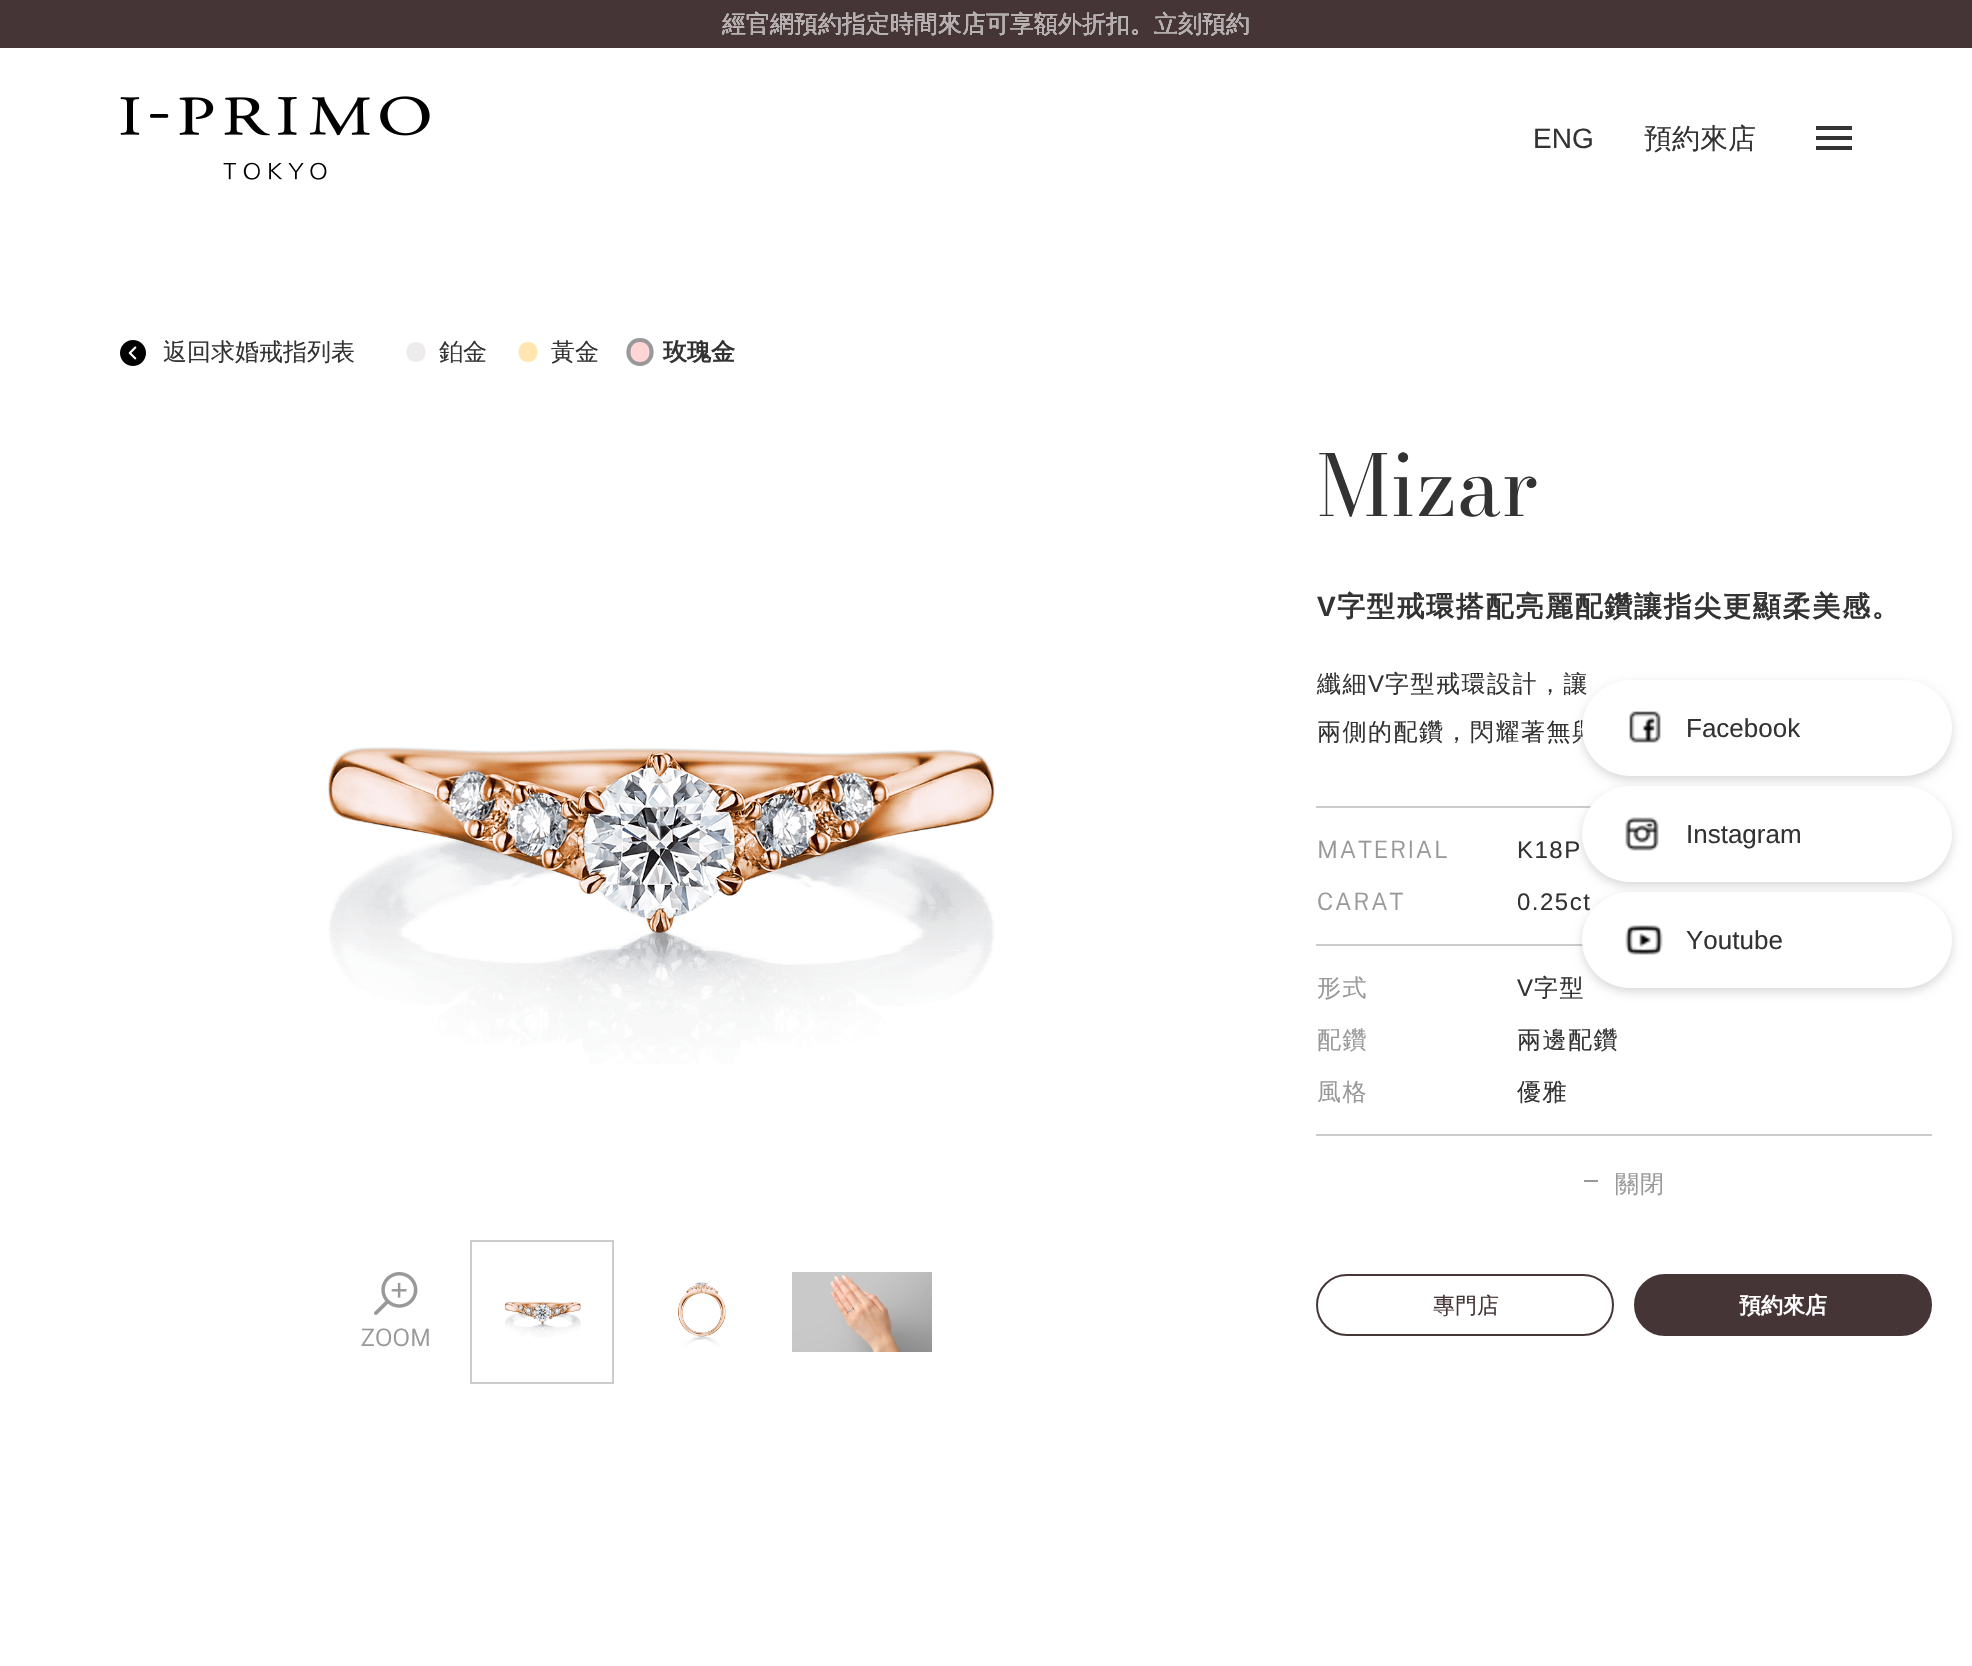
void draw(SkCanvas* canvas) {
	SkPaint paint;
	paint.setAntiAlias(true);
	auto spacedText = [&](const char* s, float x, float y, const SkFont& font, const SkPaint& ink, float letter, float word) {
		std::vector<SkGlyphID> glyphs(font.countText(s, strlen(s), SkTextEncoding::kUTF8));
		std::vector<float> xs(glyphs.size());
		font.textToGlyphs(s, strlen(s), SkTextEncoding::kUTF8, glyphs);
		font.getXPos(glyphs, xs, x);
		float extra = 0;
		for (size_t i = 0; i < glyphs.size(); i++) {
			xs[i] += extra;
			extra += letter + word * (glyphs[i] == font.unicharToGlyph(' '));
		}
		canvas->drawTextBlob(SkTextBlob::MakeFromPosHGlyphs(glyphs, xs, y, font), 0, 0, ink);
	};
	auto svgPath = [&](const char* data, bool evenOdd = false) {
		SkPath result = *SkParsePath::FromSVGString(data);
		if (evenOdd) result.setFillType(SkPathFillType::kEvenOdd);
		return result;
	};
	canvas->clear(0xffffffff);
	paint.setColor(0xff453536);
	canvas->drawRect(SkRect::MakeXYWH(0, 0, 1972, 48), paint);
	SkFont f1(fontMgr->matchFamilyStyle("WenQuanYi Zen Hei", SkFontStyle(500, SkFontStyle::kNormal_Width, SkFontStyle::kUpright_Slant)), 24);
	f1.setSubpixel(true);
	paint.setColor(0xffffffff);
	canvas->drawString("經官網預約指定時間來店可享額外折扣。立刻預約", 722, 32, f1, paint);
	paint.setColor(0xffb3acad);
	canvas->drawString("經官網預約指定時間來店可享額外折扣。立刻預約", 722, 32, f1, paint);
	canvas->drawImageRect(SkImages::DeferredFromEncodedData(SkData::MakeFromFileName("img1.png")), SkRect::MakeXYWH(120, 96, 310, 84), SkSamplingOptions());
	SkFont f2(fontMgr->matchFamilyStyle("Liberation Sans", SkFontStyle::Normal()), 28);
	f2.setSubpixel(true);
	paint.setColor(0xff333333);
	canvas->drawString("ENG", 1533, 148, f2, paint);
	SkFont f3(fontMgr->matchFamilyStyle("WenQuanYi Zen Hei", SkFontStyle(500, SkFontStyle::kNormal_Width, SkFontStyle::kUpright_Slant)), 28);
	f3.setSubpixel(true);
	canvas->drawString("預約來店", 1644, 148, f3, paint);
	canvas->drawRect(SkRect::MakeXYWH(1816, 126, 36, 4), paint);
	canvas->drawRect(SkRect::MakeXYWH(1816, 136, 36, 4), paint);
	canvas->drawRect(SkRect::MakeXYWH(1816, 146, 36, 4), paint);
	canvas->drawImageRect(SkImages::DeferredFromEncodedData(SkData::MakeFromFileName("img2.png")), SkRect::MakeXYWH(120, 340, 26, 26), SkSamplingOptions());
	canvas->drawString("返回求婚戒指列表", 163, 360, f1, paint);
	paint.setColor(0xffeeeced);
	canvas->drawPath(svgPath("M416 340C431.5 340 431.5 364 416 364C400.5 364 400.5 340 416 340Z"), paint);
	paint.setStroke(true);
	paint.setStrokeWidth(4);
	paint.setColor(0xffffffff);
	canvas->drawPath(svgPath("M416 340C431.5 340 431.5 364 416 364C400.5 364 400.5 340 416 340Z"), paint);
	paint.setStroke(false);
	paint.setColor(0xff333333);
	canvas->drawString("鉑金", 439, 360, f1, paint);
	paint.setColor(0xffffe6b0);
	canvas->drawPath(svgPath("M528 340C543.5 340 543.5 364 528 364C512.5 364 512.5 340 528 340Z"), paint);
	paint.setStroke(true);
	paint.setColor(0xffffffff);
	canvas->drawPath(svgPath("M528 340C543.5 340 543.5 364 528 364C512.5 364 512.5 340 528 340Z"), paint);
	paint.setStroke(false);
	paint.setColor(0xff333333);
	canvas->drawString("黃金", 551, 360, f1, paint);
	paint.setColor(0xfffed4d5);
	canvas->drawPath(svgPath("M640 340C655.5 340 655.5 364 640 364C624.5 364 624.5 340 640 340Z"), paint);
	paint.setStroke(true);
	paint.setColor(0xff999999);
	canvas->drawPath(svgPath("M640 340C655.5 340 655.5 364 640 364C624.5 364 624.5 340 640 340Z"), paint);
	SkFont f4(fontMgr->matchFamilyStyle("WenQuanYi Zen Hei", SkFontStyle::Bold()), 24);
	f4.setSubpixel(true);
	paint.setStroke(false);
	paint.setColor(0xff333333);
	canvas->drawString("玫瑰金", 663, 360, f4, paint);
	SkFont f5(fontMgr->matchFamilyStyle("Bodoni Moda", SkFontStyle::Normal()), 84);
	f5.setSubpixel(true);
	spacedText("Mizar", 1317, 516, f5, paint, 1, 0);
	SkFont f6(fontMgr->matchFamilyStyle("Liberation Sans", SkFontStyle::Bold()), 28);
	f6.setSubpixel(true);
	spacedText("V", 1317, 616, f6, paint, 1.7, 0);
	SkFont f7(fontMgr->matchFamilyStyle("WenQuanYi Zen Hei", SkFontStyle::Bold()), 28);
	f7.setSubpixel(true);
	spacedText("字型戒環搭配亮麗配鑽讓指尖更顯柔美感。", 1337, 616, f7, paint, 1.7, 0);
	spacedText("纖細", 1317, 692, f1, paint, 1.5, 0);
	SkFont f8(fontMgr->matchFamilyStyle("Liberation Sans", SkFontStyle::Normal()), 24);
	f8.setSubpixel(true);
	spacedText("V", 1368, 692, f8, paint, 1.5, 0);
	spacedText("字型戒環設計，讓", 1385, 692, f1, paint, 1.5, 0);
	spacedText("兩側的配鑽，閃耀著無與", 1317, 740, f1, paint, 1.5, 0);
	paint.setColor(0xffcccccc);
	canvas->drawRect(SkRect::MakeXYWH(1316, 806, 275, 2), paint);
	canvas->drawRect(SkRect::MakeXYWH(1316, 944, 267, 2), paint);
	SkFont f9(fontMgr->matchFamilyStyle("Public Sans", SkFontStyle(300, SkFontStyle::kNormal_Width, SkFontStyle::kUpright_Slant)), 24);
	f9.setSubpixel(true);
	paint.setColor(0xff999999);
	spacedText("MATERIAL", 1317, 858, f9, paint, 1.5, 0);
	paint.setColor(0xff333333);
	spacedText("K18P", 1517, 858, f8, paint, 1.5, 0);
	paint.setColor(0xff999999);
	spacedText("CARAT", 1317, 910, f9, paint, 1.5, 0);
	paint.setColor(0xff333333);
	spacedText("0.25ct", 1517, 910, f8, paint, 1.5, 0);
	paint.setColor(0xffcccccc);
	canvas->drawRect(SkRect::MakeXYWH(1316, 1134, 616, 2), paint);
	paint.setColor(0xff999999);
	spacedText("形式", 1317, 996, f1, paint, 1.5, 0);
	paint.setColor(0xff333333);
	spacedText("V", 1517, 996, f8, paint, 1.5, 0);
	spacedText("字型", 1534, 996, f1, paint, 1.5, 0);
	paint.setColor(0xff999999);
	spacedText("配鑽", 1317, 1048, f1, paint, 1.5, 0);
	paint.setColor(0xff333333);
	spacedText("兩邊配鑽", 1517, 1048, f1, paint, 1.5, 0);
	paint.setColor(0xff999999);
	spacedText("風格", 1317, 1100, f1, paint, 1.5, 0);
	paint.setColor(0xff333333);
	spacedText("優雅", 1517, 1100, f1, paint, 1.5, 0);
	paint.setColor(0xff999999);
	canvas->drawRect(SkRect::MakeXYWH(1584, 1180, 14, 2), paint);
	spacedText("關閉", 1615, 1192, f1, paint, 1, 0);
	paint.setStroke(true);
	paint.setStrokeWidth(2);
	paint.setColor(0xff453536);
	canvas->drawRoundRect(SkRect::MakeXYWH(1317, 1275, 296, 60), 30, 30, paint);
	SkFont f10(fontMgr->matchFamilyStyle("WenQuanYi Zen Hei", SkFontStyle(500, SkFontStyle::kNormal_Width, SkFontStyle::kUpright_Slant)), 22);
	f10.setSubpixel(true);
	paint.setStroke(false);
	canvas->drawString("專門店", 1433, 1313, f10, paint);
	canvas->drawRoundRect(SkRect::MakeXYWH(1635, 1275, 296, 60), 30, 30, paint);
	paint.setStroke(true);
	canvas->drawRoundRect(SkRect::MakeXYWH(1635, 1275, 296, 60), 30, 30, paint);
	SkFont f11(fontMgr->matchFamilyStyle("WenQuanYi Zen Hei", SkFontStyle::Bold()), 22);
	f11.setSubpixel(true);
	paint.setStroke(false);
	paint.setColor(0xffffffff);
	canvas->drawString("預約來店", 1739, 1313, f11, paint);
	canvas->drawImageRect(SkImages::DeferredFromEncodedData(SkData::MakeFromFileName("img3.png")), SkRect::MakeXYWH(327, 747, 668, 317), SkSamplingOptions());
	canvas->drawImageRect(SkImages::DeferredFromEncodedData(SkData::MakeFromFileName("img4.png")), SkRect::MakeXYWH(374, 1272, 44, 43), SkSamplingOptions());
	paint.setColor(0xff999999);
	canvas->drawString("ZOOM", 360, 1346, f9, paint);
	paint.setStroke(true);
	paint.setColor(0xffcccccc);
	canvas->drawRect(SkRect::MakeXYWH(471, 1241, 142, 142), paint);
	canvas->drawImageRect(SkImages::DeferredFromEncodedData(SkData::MakeFromFileName("img5.png")), SkRect::MakeXYWH(504, 1302, 77, 36), SkSamplingOptions());
	canvas->drawImageRect(SkImages::DeferredFromEncodedData(SkData::MakeFromFileName("img6.png")), SkRect::MakeXYWH(678, 1282, 48, 66), SkSamplingOptions());
	canvas->drawImageRect(SkImages::DeferredFromEncodedData(SkData::MakeFromFileName("img7.png")), SkRect::MakeXYWH(792, 1272, 140, 80), SkSamplingOptions());
	paint.setStroke(false);
	paint.setColor(0x26000000);
	paint.setMaskFilter(SkMaskFilter::MakeBlur(kNormal_SkBlurStyle, 5));
	canvas->drawRoundRect(SkRect::MakeXYWH(1582, 684, 370, 96), 48, 48, paint);
	paint.setMaskFilter(nullptr);
	paint.setColor(0xffffffff);
	canvas->drawRoundRect(SkRect::MakeXYWH(1582, 680, 370, 96), 48, 48, paint);
	canvas->drawImageRect(SkImages::DeferredFromEncodedData(SkData::MakeFromFileName("img8.png")), SkRect::MakeXYWH(1629, 711, 32, 32), SkSamplingOptions());
	SkFont f12(fontMgr->matchFamilyStyle("Liberation Sans", SkFontStyle::Normal()), 26);
	f12.setSubpixel(true);
	paint.setColor(0xff333333);
	canvas->drawString("Facebook", 1686, 737, f12, paint);
	paint.setColor(0x26000000);
	paint.setMaskFilter(SkMaskFilter::MakeBlur(kNormal_SkBlurStyle, 5));
	canvas->drawRoundRect(SkRect::MakeXYWH(1582, 790, 370, 96), 48, 48, paint);
	paint.setMaskFilter(nullptr);
	paint.setColor(0xffffffff);
	canvas->drawRoundRect(SkRect::MakeXYWH(1582, 786, 370, 96), 48, 48, paint);
	canvas->drawImageRect(SkImages::DeferredFromEncodedData(SkData::MakeFromFileName("img9.png")), SkRect::MakeXYWH(1625, 817, 34, 34), SkSamplingOptions());
	paint.setColor(0xff333333);
	canvas->drawString("Instagram", 1686, 843, f12, paint);
	paint.setColor(0x26000000);
	paint.setMaskFilter(SkMaskFilter::MakeBlur(kNormal_SkBlurStyle, 5));
	canvas->drawRoundRect(SkRect::MakeXYWH(1582, 896, 370, 96), 48, 48, paint);
	paint.setMaskFilter(nullptr);
	paint.setColor(0xffffffff);
	canvas->drawRoundRect(SkRect::MakeXYWH(1582, 892, 370, 96), 48, 48, paint);
	canvas->drawImageRect(SkImages::DeferredFromEncodedData(SkData::MakeFromFileName("img10.png")), SkRect::MakeXYWH(1625, 925, 38, 30), SkSamplingOptions());
	paint.setColor(0xff333333);
	canvas->drawString("Youtube", 1686, 949, f12, paint);
}
